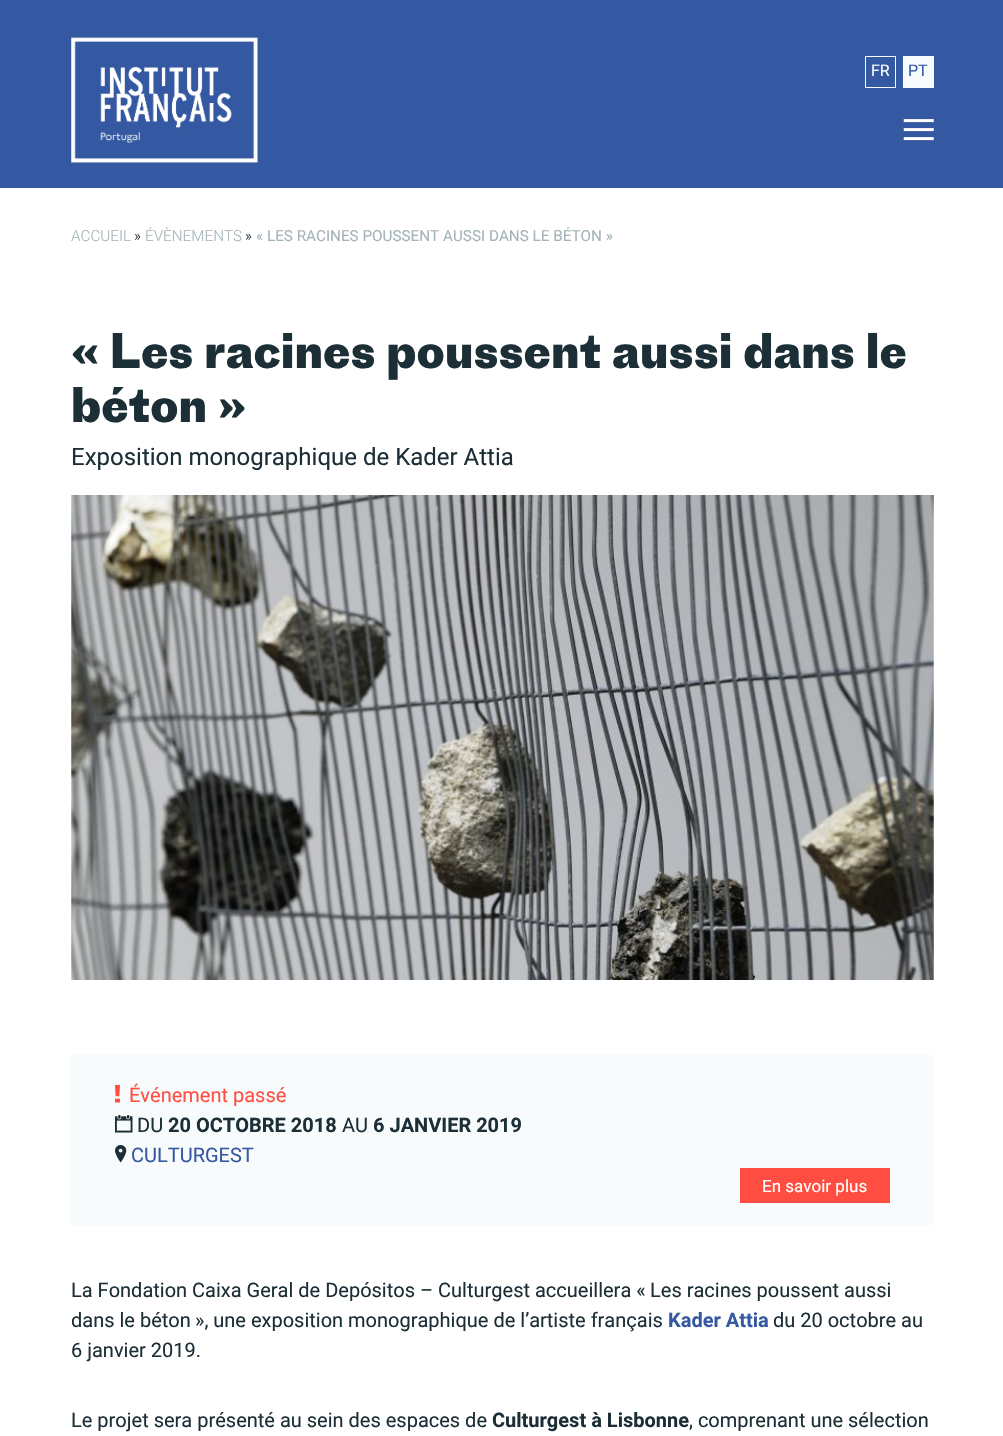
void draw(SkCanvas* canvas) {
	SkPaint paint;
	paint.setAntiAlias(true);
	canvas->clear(0xffffffff);
	paint.setColor(0xff3558a2);
	canvas->drawRect(SkRect::MakeXYWH(0, 0, 1003, 188), paint);
	canvas->drawImageRect(SkImages::DeferredFromEncodedData(SkData::MakeFromFileName("img1.png")), SkRect::MakeXYWH(71, 37, 187, 126), SkSamplingOptions());
	paint.setStroke(true);
	paint.setStrokeWidth(1);
	paint.setColor(0xfff8fbfc);
	canvas->drawRect(SkRect::MakeXYWH(865.5, 56.5, 30, 31), paint);
	SkFont f1(fontMgr->matchFamilyStyle("Roboto", SkFontStyle::Normal()), 16);
	f1.setSubpixel(true);
	paint.setStroke(false);
	canvas->drawString("FR", 871, 76, f1, paint);
	canvas->drawRect(SkRect::MakeXYWH(903, 56, 31, 32), paint);
	paint.setColor(0xff3558a2);
	canvas->drawString("PT", 908, 76, f1, paint);
	canvas->drawImageRect(SkImages::DeferredFromEncodedData(SkData::MakeFromFileName("img2.png")), SkRect::MakeXYWH(903, 119, 31, 22), SkSamplingOptions());
	SkFont f2(fontMgr->matchFamilyStyle("Roboto", SkFontStyle(300, SkFontStyle::kNormal_Width, SkFontStyle::kUpright_Slant)), 15.25);
	f2.setSubpixel(true);
	paint.setColor(0xffa4b3b7);
	canvas->drawString("ACCUEIL", 71, 241, f2, paint);
	paint.setColor(0xff1c2e36);
	canvas->drawString("»", 134, 241, f2, paint);
	paint.setColor(0xffa4b3b7);
	canvas->drawString("ÉVÈNEMENTS", 145, 241, f2, paint);
	paint.setColor(0xff1c2e36);
	canvas->drawString("»", 245, 241, f2, paint);
	SkFont f3(fontMgr->matchFamilyStyle("Roboto", SkFontStyle::Normal()), 15.25);
	f3.setSubpixel(true);
	paint.setColor(0xffa4b3b7);
	canvas->drawString("« LES RACINES POUSSENT AUSSI DANS LE BÉTON »", 256, 241, f3, paint);
	SkFont f4(fontMgr->matchFamilyStyle("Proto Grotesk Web", SkFontStyle::Bold()), 46.75);
	f4.setSubpixel(true);
	paint.setColor(0xff1c2e36);
	canvas->drawString("« Les racines poussent aussi dans le", 71, 368, f4, paint);
	canvas->drawString("béton »", 71, 422, f4, paint);
	SkFont f5(fontMgr->matchFamilyStyle("Roboto", SkFontStyle::Normal()), 24);
	f5.setSubpixel(true);
	canvas->drawString("Exposition monographique de Kader Attia", 71, 465, f5, paint);
	canvas->drawImageRect(SkImages::DeferredFromEncodedData(SkData::MakeFromFileName("img3.png")), SkRect::MakeXYWH(71, 495, 863, 485), SkSamplingOptions());
	paint.setColor(0xfff8fbfc);
	canvas->drawRect(SkRect::MakeXYWH(71, 1055, 863, 170), paint);
	canvas->drawImageRect(SkImages::DeferredFromEncodedData(SkData::MakeFromFileName("img4.png")), SkRect::MakeXYWH(115, 1085, 5, 18), SkSamplingOptions());
	SkFont f6(fontMgr->matchFamilyStyle("Roboto", SkFontStyle::Normal()), 20);
	f6.setSubpixel(true);
	paint.setColor(0xffff4d42);
	canvas->drawString("Événement passé", 129, 1102, f6, paint);
	canvas->drawImageRect(SkImages::DeferredFromEncodedData(SkData::MakeFromFileName("img5.png")), SkRect::MakeXYWH(115, 1115, 18, 18), SkSamplingOptions());
	paint.setColor(0xff1c2e36);
	canvas->drawString("DU", 137, 1132, f6, paint);
	SkFont f7(fontMgr->matchFamilyStyle("Roboto", SkFontStyle::Bold()), 20);
	f7.setSubpixel(true);
	canvas->drawString("20 OCTOBRE 2018", 168, 1132, f7, paint);
	canvas->drawString("AU", 342, 1132, f6, paint);
	canvas->drawString("6 JANVIER 2019", 373, 1132, f7, paint);
	canvas->drawImageRect(SkImages::DeferredFromEncodedData(SkData::MakeFromFileName("img6.png")), SkRect::MakeXYWH(115, 1145, 12, 18), SkSamplingOptions());
	paint.setColor(0xff3558a2);
	canvas->drawString("CULTURGEST", 131, 1162, f6, paint);
	paint.setColor(0xffff4d42);
	canvas->drawRect(SkRect::MakeXYWH(740, 1168, 150, 35), paint);
	SkFont f8(fontMgr->matchFamilyStyle("Roboto", SkFontStyle::Normal()), 17);
	f8.setSubpixel(true);
	paint.setColor(0xffffffff);
	canvas->drawString("En savoir plus", 762, 1192, f8, paint);
	paint.setColor(0xff1c2e36);
	canvas->drawString("La Fondation Caixa Geral de Depósitos – Culturgest accueillera «", 71, 1297, f6, paint);
	canvas->drawString("Les racines poussent aussi", 650, 1297, f6, paint);
	canvas->drawString("dans le béton", 71, 1327, f6, paint);
	canvas->drawString("», une exposition monographique de l’artiste français", 195, 1327, f6, paint);
	paint.setColor(0xff3558a2);
	canvas->drawString("Kader Attia", 668, 1327, f7, paint);
	paint.setColor(0xff1c2e36);
	canvas->drawString("du 20 octobre au", 773, 1327, f6, paint);
	canvas->drawString("6 janvier 2019.", 71, 1357, f6, paint);
	canvas->drawString("Le projet sera présenté au sein des espaces de", 71, 1427, f6, paint);
	canvas->drawString("Culturgest à Lisbonne", 492, 1427, f7, paint);
	canvas->drawString(", comprenant une sélection", 689, 1427, f6, paint);
}
